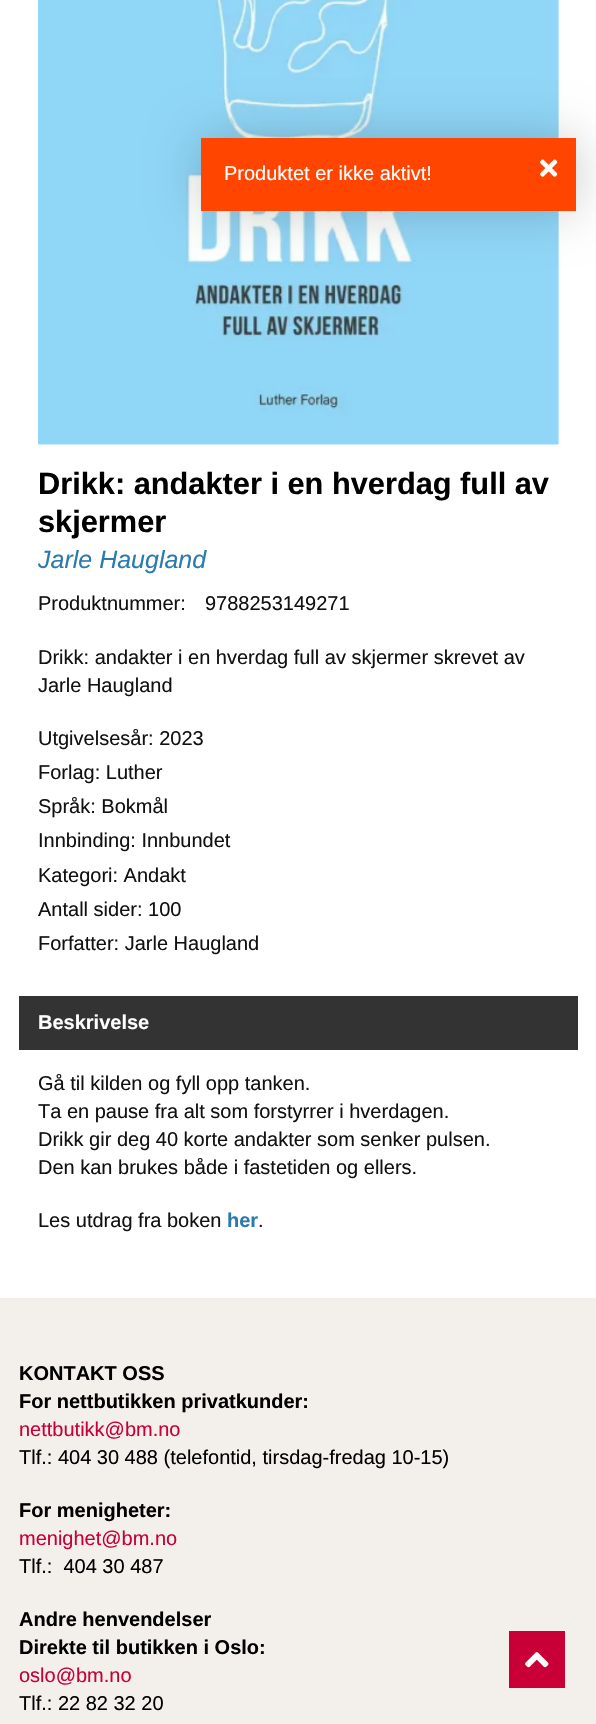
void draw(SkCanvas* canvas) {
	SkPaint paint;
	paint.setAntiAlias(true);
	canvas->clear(0xffffffff);
	canvas->drawImageRect(SkImages::DeferredFromEncodedData(SkData::MakeFromFileName("img2.png")), SkRect::MakeXYWH(38, 0, 521, 445), SkSamplingOptions());
	paint.setColor(0x33000000);
	paint.setMaskFilter(SkMaskFilter::MakeBlur(kNormal_SkBlurStyle, 25));
	canvas->drawRoundRect(SkRect::MakeXYWH(201, 138, 375, 73), 2.5, 2.5, paint);
	paint.setMaskFilter(nullptr);
	paint.setColor(0xffff4500);
	canvas->drawRect(SkRect::MakeXYWH(201, 138, 375, 73), paint);
	SkFont f1(fontMgr->matchFamilyStyle("Liberation Sans", SkFontStyle::Normal()), 20);
	f1.setSubpixel(true);
	paint.setColor(0xffffffff);
	canvas->drawString("Produktet er ikke aktivt!", 224, 180, f1, paint);
	canvas->drawImageRect(SkImages::DeferredFromEncodedData(SkData::MakeFromFileName("img1.png")), SkRect::MakeXYWH(540, 159, 18, 18), SkSamplingOptions());
	SkFont f2(fontMgr->matchFamilyStyle("Liberation Sans", SkFontStyle::Bold()), 30.75);
	f2.setSubpixel(true);
	paint.setColor(0xff000000);
	canvas->drawString("Drikk: andakter i en hverdag full av", 38, 494, f2, paint);
	canvas->drawString("skjermer", 38, 532, f2, paint);
	SkFont f3(fontMgr->matchFamilyStyle("Liberation Sans", SkFontStyle::Italic()), 25);
	f3.setSubpixel(true);
	paint.setColor(0xff2a7ab0);
	canvas->drawString("Jarle Haugland", 38, 568, f3, paint);
	paint.setColor(0xff111111);
	canvas->drawString("Produktnummer:", 38, 610, f1, paint);
	canvas->drawString("9788253149271", 205, 610, f1, paint);
	canvas->drawString("Drikk: andakter i en hverdag full av skjermer skrevet av", 38, 664, f1, paint);
	canvas->drawString("Jarle Haugland", 38, 692, f1, paint);
	canvas->drawString("Utgivelsesår: 2023", 38, 745, f1, paint);
	canvas->drawString("Forlag: Luther", 38, 779, f1, paint);
	canvas->drawString("Språk: Bokmål", 38, 813, f1, paint);
	canvas->drawString("Innbinding: Innbundet", 38, 847, f1, paint);
	canvas->drawString("Kategori: Andakt", 38, 882, f1, paint);
	canvas->drawString("Antall sider: 100", 38, 916, f1, paint);
	canvas->drawString("Forfatter: Jarle Haugland", 38, 950, f1, paint);
	paint.setColor(0xff333333);
	canvas->drawRect(SkRect::MakeXYWH(19, 996, 559, 54), paint);
	SkFont f4(fontMgr->matchFamilyStyle("Liberation Sans", SkFontStyle::Bold()), 20);
	f4.setSubpixel(true);
	paint.setColor(0xffffffff);
	canvas->drawString("Beskrivelse", 38, 1029, f4, paint);
	paint.setColor(0xff111111);
	canvas->drawString("Gå til kilden og fyll opp tanken.", 38, 1090, f1, paint);
	canvas->drawString("Ta en pause fra alt som forstyrrer i hverdagen.", 38, 1118, f1, paint);
	canvas->drawString("Drikk gir deg 40 korte andakter som senker pulsen.", 38, 1146, f1, paint);
	canvas->drawString("Den kan brukes både i fastetiden og ellers.", 38, 1174, f1, paint);
	canvas->drawString("Les utdrag fra boken", 38, 1227, f1, paint);
	paint.setColor(0xff2a7ab0);
	canvas->drawString("her", 227, 1227, f4, paint);
	paint.setColor(0xff111111);
	canvas->drawString(".", 258, 1227, f1, paint);
	paint.setColor(0xfff3f0eb);
	canvas->drawRect(SkRect::MakeXYWH(0, 1298, 596, 426), paint);
	paint.setColor(0xffc80037);
	canvas->drawRect(SkRect::MakeXYWH(509, 1631, 56, 57), paint);
	canvas->drawImageRect(SkImages::DeferredFromEncodedData(SkData::MakeFromFileName("img3.png")), SkRect::MakeXYWH(525, 1652, 24, 16), SkSamplingOptions());
	paint.setColor(0xff000000);
	canvas->drawString("KONTAKT OSS", 19, 1380, f4, paint);
	canvas->drawString("For nettbutikken privatkunder:", 19, 1408, f4, paint);
	paint.setColor(0xffc80037);
	canvas->drawString("nettbutikk@bm.no", 19, 1436, f1, paint);
	paint.setColor(0xff000000);
	canvas->drawString("Tlf.: 404 30 488 (telefontid, tirsdag-fredag 10-15)", 19, 1464, f1, paint);
	canvas->drawString("For menigheter:", 19, 1517, f4, paint);
	paint.setColor(0xffc80037);
	canvas->drawString("menighet@bm.no", 19, 1545, f1, paint);
	paint.setColor(0xff000000);
	canvas->drawString("Tlf.:  404 30 487", 19, 1573, f1, paint);
	canvas->drawString("Andre henvendelser", 19, 1626, f4, paint);
	canvas->drawString("Direkte til butikken i Oslo:", 19, 1654, f4, paint);
	paint.setColor(0xffc80037);
	canvas->drawString("oslo@bm.no", 19, 1682, f1, paint);
	paint.setColor(0xff000000);
	canvas->drawString("Tlf.: 22 82 32 20", 19, 1710, f1, paint);
}
